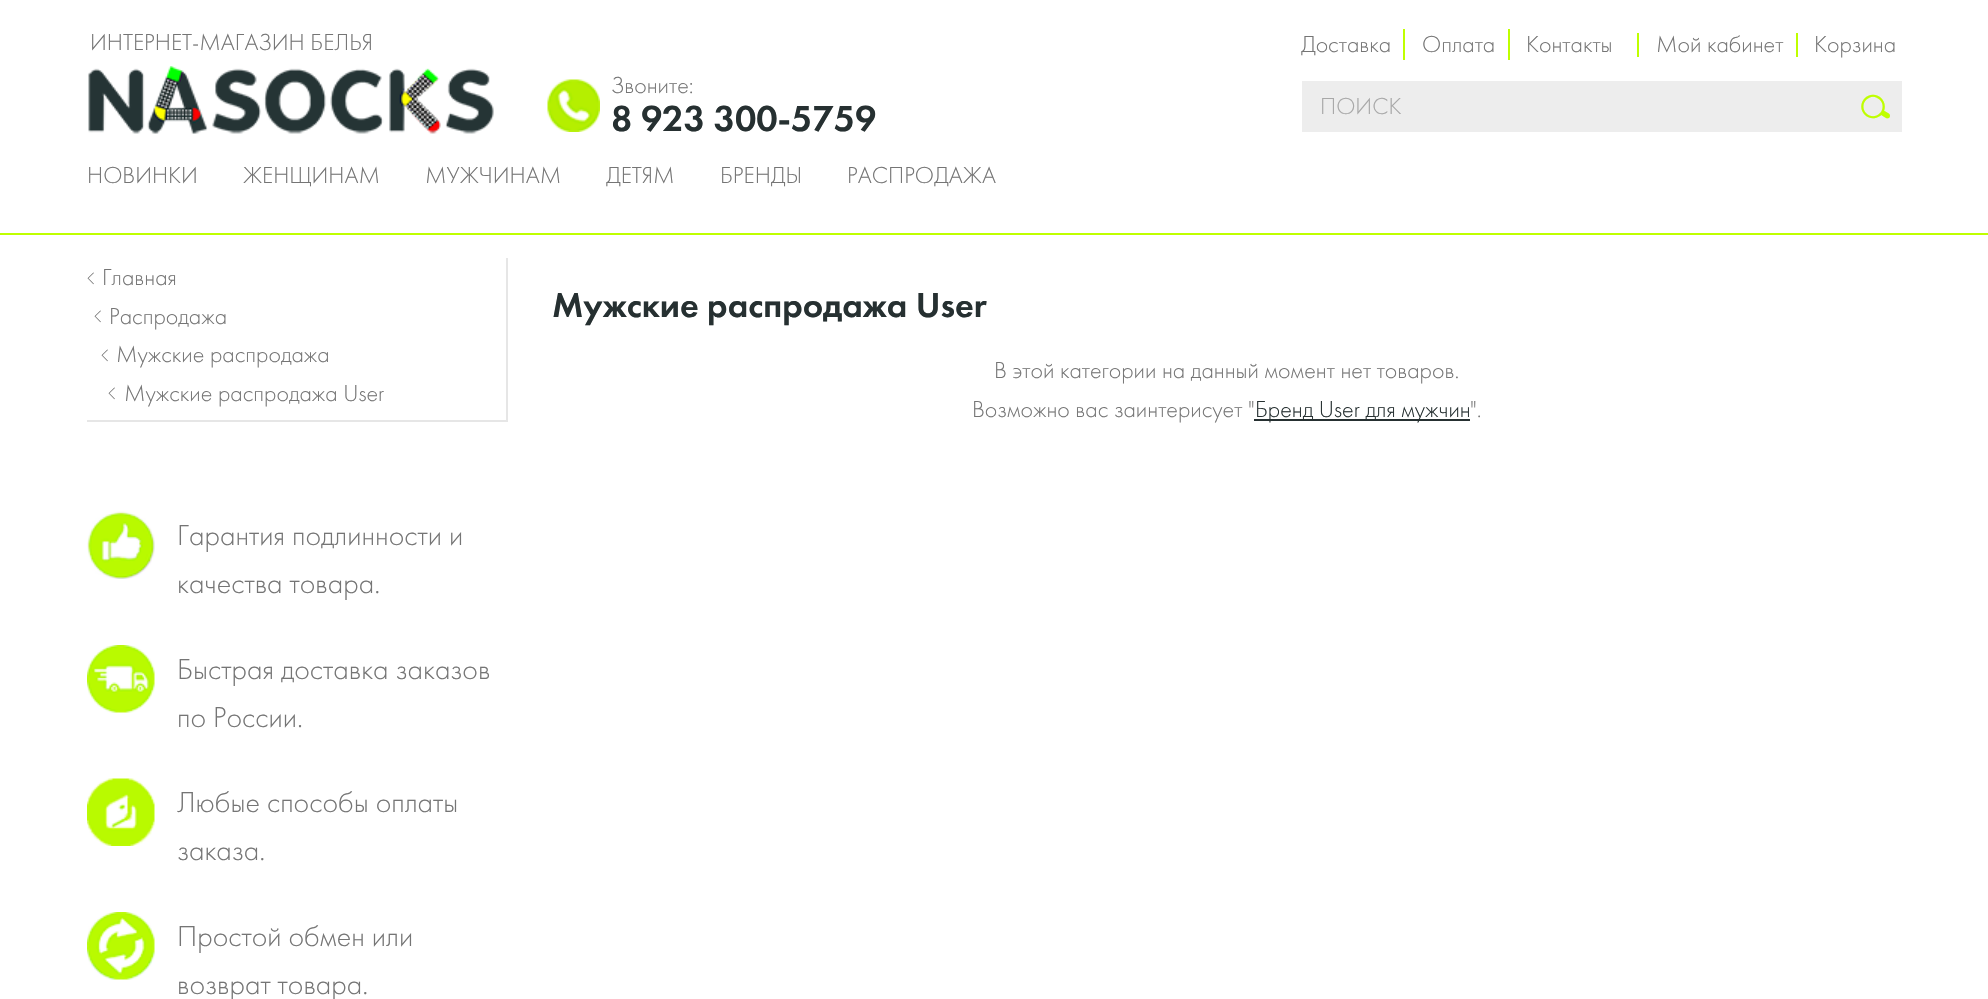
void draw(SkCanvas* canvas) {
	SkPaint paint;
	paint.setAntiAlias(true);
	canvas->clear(0xffffffff);
	paint.setColor(0xffbfff00);
	canvas->drawRect(SkRect::MakeXYWH(0, 233, 1988, 2), paint);
	SkFont f1(fontMgr->matchFamilyStyle("Futura PT", SkFontStyle(300, SkFontStyle::kNormal_Width, SkFontStyle::kUpright_Slant)), 24);
	f1.setSubpixel(true);
	paint.setColor(0xff757575);
	canvas->drawString("ИНТЕРНЕТ-МАГАЗИН БЕЛЬЯ", 90, 50, f1, paint);
	canvas->drawImageRect(SkImages::DeferredFromEncodedData(SkData::MakeFromFileName("img1.png")), SkRect::MakeXYWH(88, 66, 406, 68), SkSamplingOptions());
	paint.setColor(0xffbfff00);
	canvas->drawRect(SkRect::MakeXYWH(1637, 33, 2, 24), paint);
	paint.setColor(0xff757575);
	canvas->drawString("Доставка", 1301, 52, f1, paint);
	paint.setColor(0xffbfff00);
	canvas->drawRect(SkRect::MakeXYWH(1403, 29, 2, 31), paint);
	paint.setColor(0xff757575);
	canvas->drawString("Оплата", 1422, 52, f1, paint);
	paint.setColor(0xffbfff00);
	canvas->drawRect(SkRect::MakeXYWH(1508, 29, 2, 31), paint);
	paint.setColor(0xff757575);
	canvas->drawString("Контакты", 1526, 52, f1, paint);
	paint.setColor(0xffbfff00);
	canvas->drawRect(SkRect::MakeXYWH(1796, 33, 2, 24), paint);
	paint.setColor(0xff757575);
	canvas->drawString("Мой кабинет", 1656, 52, f1, paint);
	canvas->drawString("Корзина", 1814, 52, f1, paint);
	canvas->drawImageRect(SkImages::DeferredFromEncodedData(SkData::MakeFromFileName("img2.png")), SkRect::MakeXYWH(547, 79, 53, 53), SkSamplingOptions());
	canvas->drawString("Звоните:", 611, 93, f1, paint);
	SkFont f2(fontMgr->matchFamilyStyle("Futura PT", SkFontStyle(500, SkFontStyle::kNormal_Width, SkFontStyle::kUpright_Slant)), 37.5);
	f2.setSubpixel(true);
	paint.setColor(0xff263031);
	canvas->drawString("8 923 300-5759", 611, 131, f2, paint);
	paint.setColor(0xffededed);
	canvas->drawRect(SkRect::MakeXYWH(1302, 81, 600, 51), paint);
	paint.setColor(0xffa8a8a8);
	canvas->drawString("ПОИСК", 1320, 114, f1, paint);
	SkFont f3(fontMgr->matchFamilyStyle("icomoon", SkFontStyle::Normal()), 24);
	f3.setSubpixel(true);
	paint.setColor(0xffbfff00);
	canvas->drawString("s", 1861, 117, f3, paint);
	paint.setColor(0xff757575);
	canvas->drawString("НОВИНКИ", 87, 183, f1, paint);
	canvas->drawString("ЖЕНЩИНАМ", 243, 183, f1, paint);
	canvas->drawString("МУЖЧИНАМ", 425, 183, f1, paint);
	canvas->drawString("ДЕТЯМ", 606, 183, f1, paint);
	canvas->drawString("БРЕНДЫ", 720, 183, f1, paint);
	canvas->drawString("РАСПРОДАЖА", 847, 183, f1, paint);
	paint.setColor(0xffe6e6e6);
	canvas->drawRect(SkRect::MakeXYWH(506, 258, 2, 164), paint);
	canvas->drawRect(SkRect::MakeXYWH(87, 420, 420, 2), paint);
	SkFont f4(fontMgr->matchFamilyStyle("icomoon", SkFontStyle::Normal()), 12);
	f4.setSubpixel(true);
	paint.setColor(0xff757575);
	canvas->save();
	canvas->rotate(180, 94, 273);
	canvas->drawString(">", 94, 273, f4, paint);
	canvas->restore();
	canvas->drawString("Главная", 102, 285, f1, paint);
	canvas->save();
	canvas->rotate(180, 101, 311);
	canvas->drawString(">", 101, 311, f4, paint);
	canvas->restore();
	canvas->drawString("Распродажа", 109, 324, f1, paint);
	canvas->save();
	canvas->rotate(180, 108, 350);
	canvas->drawString(">", 108, 350, f4, paint);
	canvas->restore();
	canvas->drawString("Мужские распродажа", 116, 362, f1, paint);
	canvas->save();
	canvas->rotate(180, 115, 388);
	canvas->drawString(">", 115, 388, f4, paint);
	canvas->restore();
	canvas->drawString("Мужские распродажа User", 124, 401, f1, paint);
	canvas->drawImageRect(SkImages::DeferredFromEncodedData(SkData::MakeFromFileName("img3.png")), SkRect::MakeXYWH(87, 511, 68, 68), SkSamplingOptions());
	SkFont f5(fontMgr->matchFamilyStyle("Futura PT", SkFontStyle(300, SkFontStyle::kNormal_Width, SkFontStyle::kUpright_Slant)), 30);
	f5.setSubpixel(true);
	canvas->drawString("Гарантия подлинности и", 177, 545, f5, paint);
	canvas->drawString("качества товара.", 177, 593, f5, paint);
	canvas->drawImageRect(SkImages::DeferredFromEncodedData(SkData::MakeFromFileName("img4.png")), SkRect::MakeXYWH(87, 645, 68, 68), SkSamplingOptions());
	canvas->drawString("Быстрая доставка заказов", 177, 679, f5, paint);
	canvas->drawString("по России.", 177, 727, f5, paint);
	canvas->drawImageRect(SkImages::DeferredFromEncodedData(SkData::MakeFromFileName("img5.png")), SkRect::MakeXYWH(87, 778, 68, 68), SkSamplingOptions());
	canvas->drawString("Любые способы оплаты", 177, 812, f5, paint);
	canvas->drawString("заказа.", 177, 860, f5, paint);
	canvas->drawImageRect(SkImages::DeferredFromEncodedData(SkData::MakeFromFileName("img6.png")), SkRect::MakeXYWH(87, 912, 68, 68), SkSamplingOptions());
	canvas->drawString("Простой обмен или", 177, 946, f5, paint);
	canvas->drawString("возврат товара.", 177, 994, f5, paint);
	SkFont f6(fontMgr->matchFamilyStyle("Futura PT", SkFontStyle(500, SkFontStyle::kNormal_Width, SkFontStyle::kUpright_Slant)), 36);
	f6.setSubpixel(true);
	paint.setColor(0xff263031);
	canvas->drawString("Мужские распродажа User", 552, 317, f6, paint);
	paint.setColor(0xff757575);
	canvas->drawString("В этой категории на данный момент нет товаров.", 994, 378, f1, paint);
	canvas->drawString("Возможно вас заинтерисует \"", 972, 417, f1, paint);
	paint.setColor(0xff263031);
	canvas->drawRect(SkRect::MakeXYWH(1254, 419, 216, 2), paint);
	canvas->drawString("Бренд User для мужчин", 1255, 417, f1, paint);
	paint.setColor(0xff757575);
	canvas->drawString("\".", 1470, 417, f1, paint);
}
